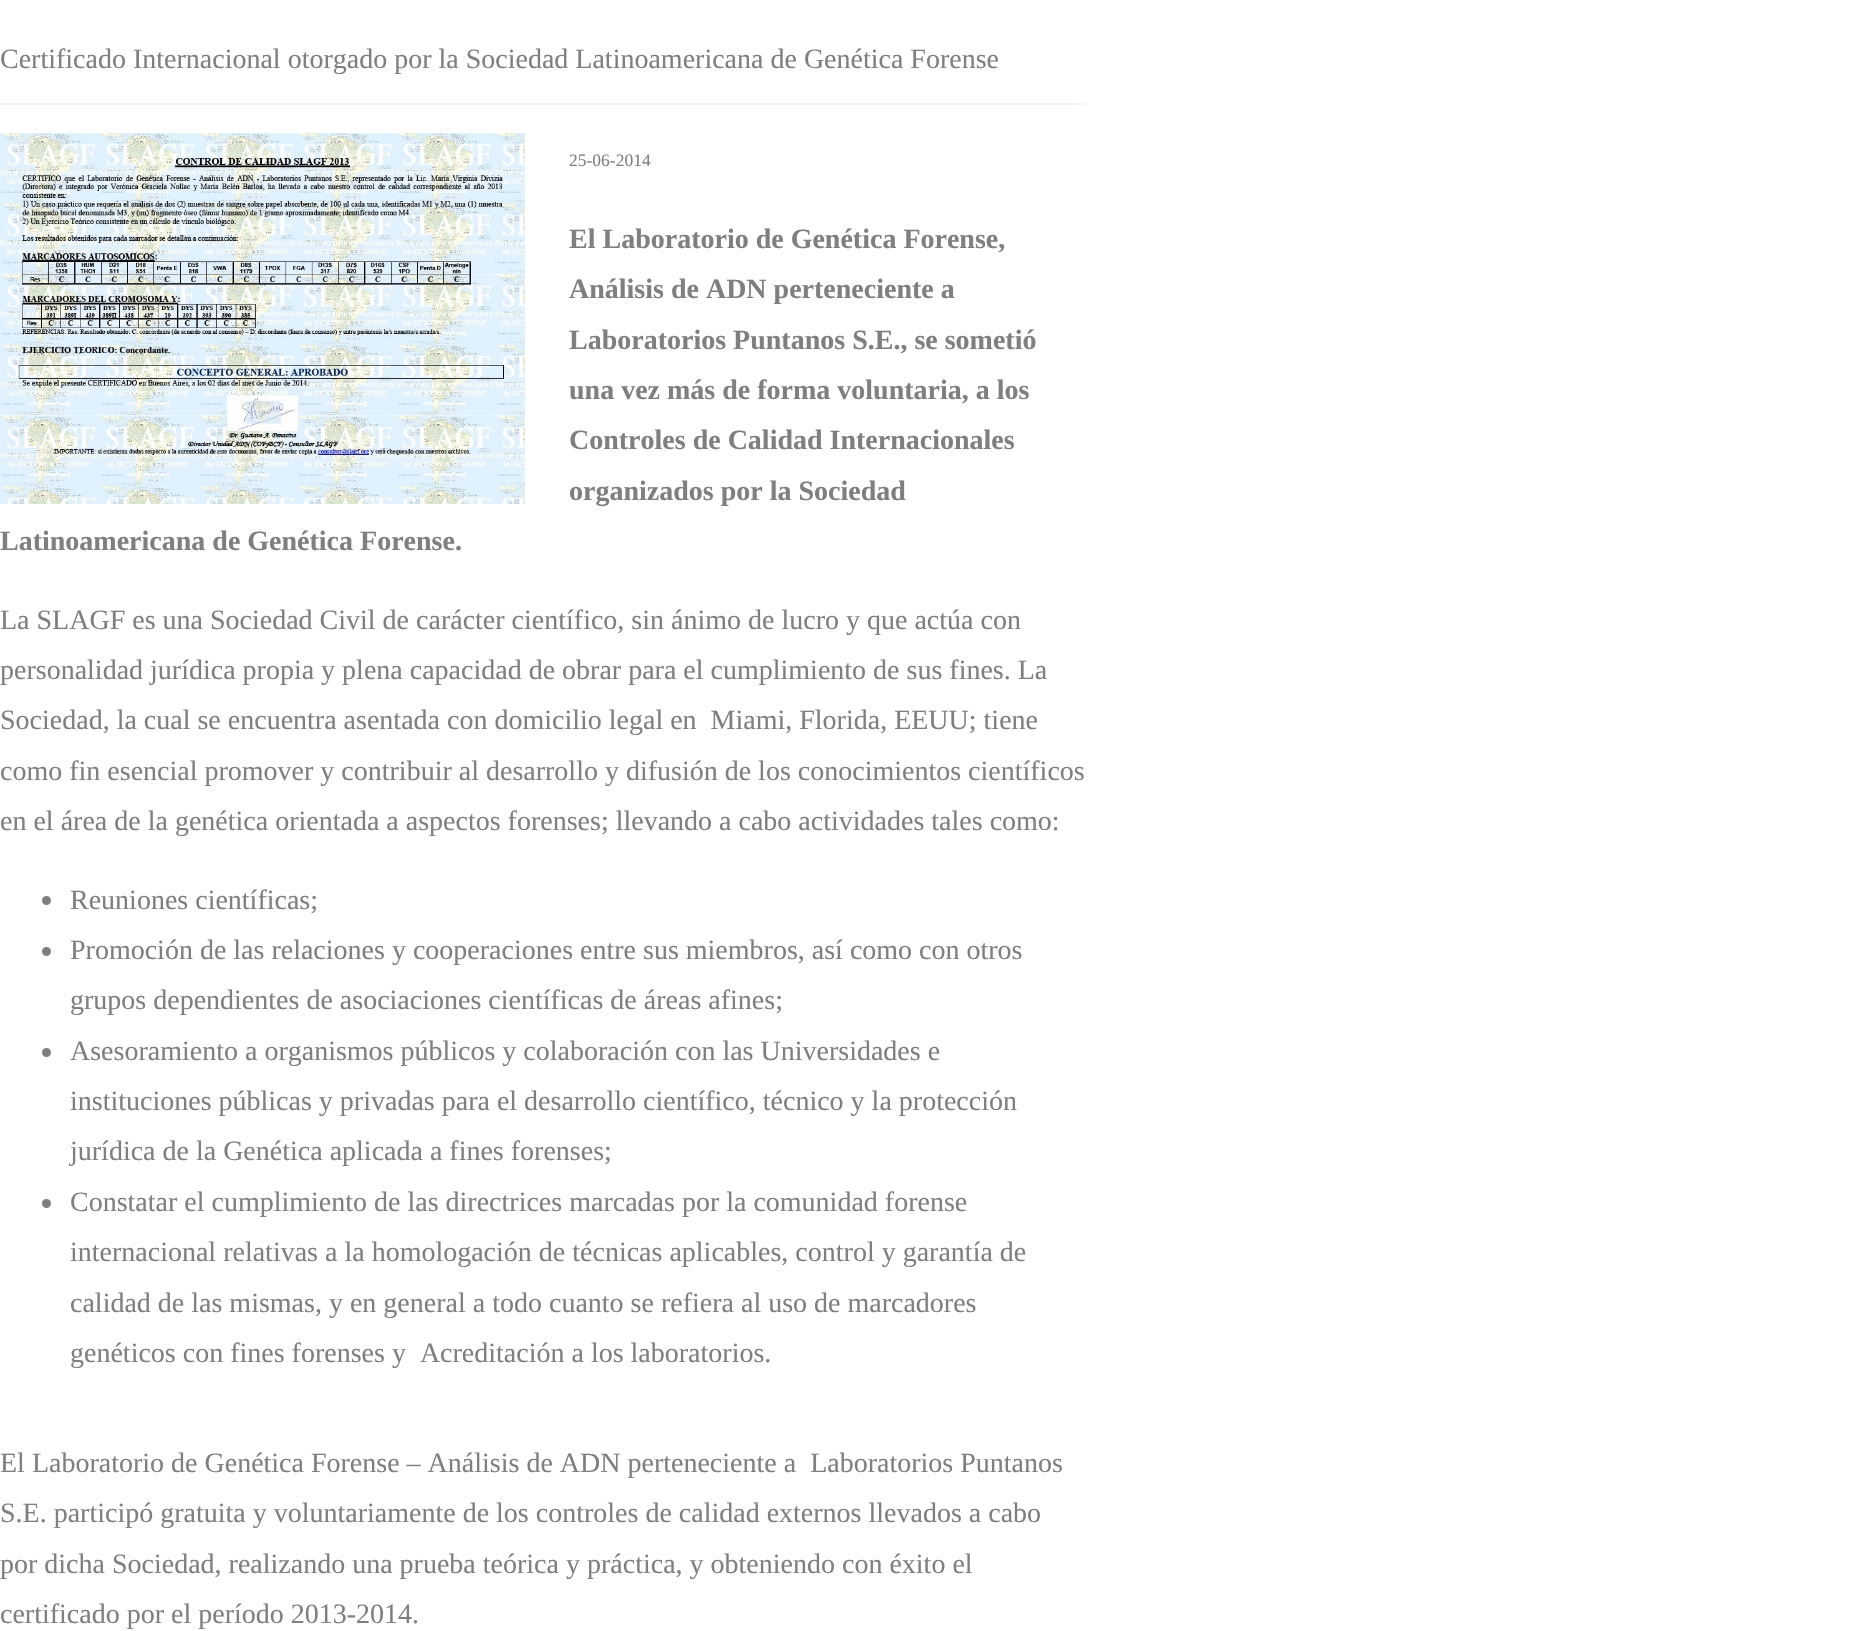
void draw(SkCanvas* canvas) {
	SkPaint paint;
	paint.setAntiAlias(true);
	canvas->clear(0xffffffff);
	paint.setColor(0xffeff4f5);
	canvas->drawRect(SkRect::MakeXYWH(0, 103, 1085, 2), paint);
	SkFont f1(fontMgr->matchFamilyStyle("Liberation Serif", SkFontStyle::Normal()), 28);
	f1.setSubpixel(true);
	paint.setColor(0xff7f7f81);
	canvas->drawString("Certificado Internacional otorgado por la Sociedad Latinoamericana de Genética Forense", 0, 68, f1, paint);
	canvas->drawImageRect(SkImages::DeferredFromEncodedData(SkData::MakeFromFileName("img1.png")), SkRect::MakeXYWH(0, 133, 525, 371), SkSamplingOptions());
	SkFont f2(fontMgr->matchFamilyStyle("Liberation Serif", SkFontStyle::Normal()), 17.5);
	f2.setSubpixel(true);
	canvas->drawString("25-06-2014", 569, 166, f2, paint);
	SkFont f3(fontMgr->matchFamilyStyle("Liberation Serif", SkFontStyle::Bold()), 28);
	f3.setSubpixel(true);
	canvas->drawString("El Laboratorio de Genética Forense,", 569, 248, f3, paint);
	canvas->drawString("Análisis de ADN perteneciente a", 569, 298, f3, paint);
	canvas->drawString("Laboratorios Puntanos S.E., se sometió", 569, 349, f3, paint);
	canvas->drawString("una vez más de forma voluntaria, a los", 569, 399, f3, paint);
	canvas->drawString("Controles de Calidad Internacionales", 569, 449, f3, paint);
	canvas->drawString("organizados por la Sociedad", 569, 500, f3, paint);
	canvas->drawString("Latinoamericana de Genética Forense.", 0, 550, f3, paint);
	canvas->drawString("La SLAGF es una Sociedad Civil de carácter científico, sin ánimo de lucro y que actúa con", 0, 629, f1, paint);
	canvas->drawString("personalidad jurídica propia y plena capacidad de obrar para el cumplimiento de sus fines. La", 0, 679, f1, paint);
	canvas->drawString("Sociedad, la cual se encuentra asentada con domicilio legal en  Miami, Florida, EEUU; tiene", 0, 729, f1, paint);
	canvas->drawString("como fin esencial promover y contribuir al desarrollo y difusión de los conocimientos científicos", 0, 780, f1, paint);
	canvas->drawString("en el área de la genética orientada a aspectos forenses; llevando a cabo actividades tales como:", 0, 830, f1, paint);
	canvas->drawCircle(46.5, 900.5, 4.5, paint);
	canvas->drawString("Reuniones científicas;", 70, 909, f1, paint);
	canvas->drawCircle(46.5, 951.5, 4.5, paint);
	canvas->drawString("Promoción de las relaciones y cooperaciones entre sus miembros, así como con otros", 70, 959, f1, paint);
	canvas->drawString("grupos dependientes de asociaciones científicas de áreas afines;", 70, 1009, f1, paint);
	canvas->drawCircle(46.5, 1052.5, 4.5, paint);
	canvas->drawString("Asesoramiento a organismos públicos y colaboración con las Universidades e", 70, 1060, f1, paint);
	canvas->drawString("instituciones públicas y privadas para el desarrollo científico, técnico y la protección", 70, 1110, f1, paint);
	canvas->drawString("jurídica de la Genética aplicada a fines forenses;", 70, 1160, f1, paint);
	canvas->drawCircle(46.5, 1203.5, 4.5, paint);
	canvas->drawString("Constatar el cumplimiento de las directrices marcadas por la comunidad forense", 70, 1211, f1, paint);
	canvas->drawString("internacional relativas a la homologación de técnicas aplicables, control y garantía de", 70, 1261, f1, paint);
	canvas->drawString("calidad de las mismas, y en general a todo cuanto se refiera al uso de marcadores", 70, 1312, f1, paint);
	canvas->drawString("genéticos con fines forenses y  Acreditación a los laboratorios.", 70, 1362, f1, paint);
	canvas->drawString("El Laboratorio de Genética Forense – Análisis de ADN perteneciente a  Laboratorios Puntanos", 0, 1472, f1, paint);
	canvas->drawString("S.E. participó gratuita y voluntariamente de los controles de calidad externos llevados a cabo", 0, 1522, f1, paint);
	canvas->drawString("por dicha Sociedad, realizando una prueba teórica y práctica, y obteniendo con éxito el", 0, 1573, f1, paint);
	canvas->drawString("certificado por el período 2013-2014.", 0, 1623, f1, paint);
}
